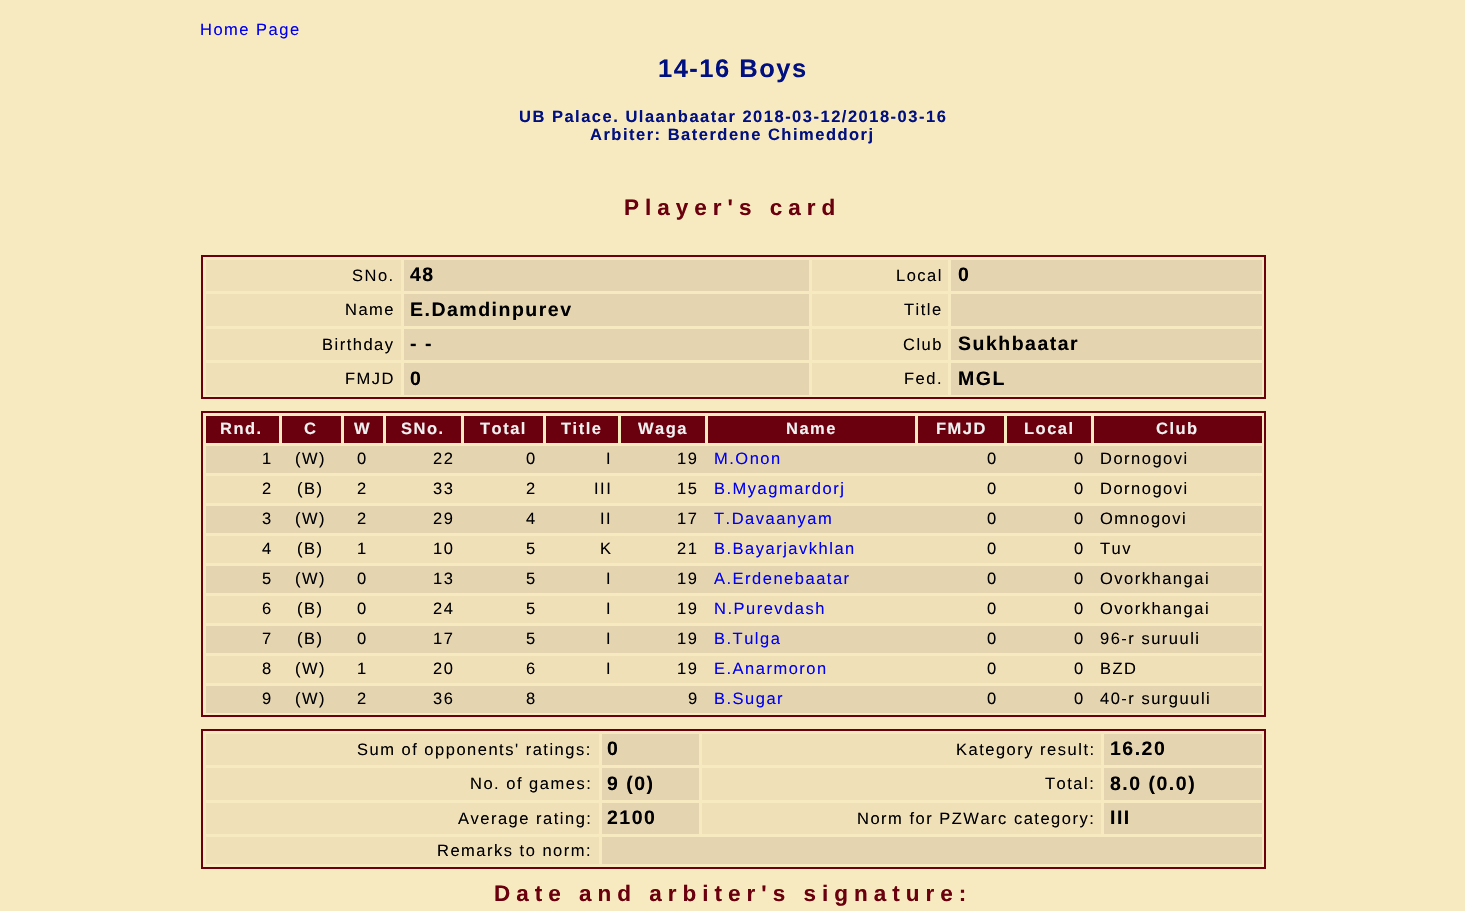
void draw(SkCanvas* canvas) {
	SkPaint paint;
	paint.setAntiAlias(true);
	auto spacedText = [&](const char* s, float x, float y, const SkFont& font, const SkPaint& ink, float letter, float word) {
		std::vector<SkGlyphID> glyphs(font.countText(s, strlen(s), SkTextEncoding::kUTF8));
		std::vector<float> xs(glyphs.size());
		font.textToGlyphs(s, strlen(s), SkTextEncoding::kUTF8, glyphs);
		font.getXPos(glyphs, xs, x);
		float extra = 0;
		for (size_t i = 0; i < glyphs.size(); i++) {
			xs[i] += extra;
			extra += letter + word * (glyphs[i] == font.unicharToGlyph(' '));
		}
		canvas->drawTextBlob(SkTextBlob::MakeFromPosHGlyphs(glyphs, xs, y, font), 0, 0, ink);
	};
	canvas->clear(0xfff8eac0);
	SkFont f1(fontMgr->matchFamilyStyle("Liberation Sans", SkFontStyle::Normal()), 16.5);
	f1.setSubpixel(true);
	paint.setColor(0xff0000f0);
	spacedText("Home Page", 200, 35, f1, paint, 1.5, 0);
	SkFont f2(fontMgr->matchFamilyStyle("Liberation Sans", SkFontStyle::Bold()), 25.5);
	f2.setSubpixel(true);
	paint.setColor(0xff001080);
	spacedText("14-16 Boys", 658, 77, f2, paint, 1.5, 0);
	SkFont f3(fontMgr->matchFamilyStyle("Liberation Sans", SkFontStyle::Bold()), 16.5);
	f3.setSubpixel(true);
	spacedText("UB Palace. Ulaanbaatar 2018-03-12/2018-03-16", 519, 122, f3, paint, 1.5, 0);
	spacedText("Arbiter: Baterdene Chimeddorj", 590, 140, f3, paint, 1.5, 0);
	SkFont f4(fontMgr->matchFamilyStyle("Liberation Sans", SkFontStyle::Bold()), 22.5);
	f4.setSubpixel(true);
	paint.setColor(0xff6a000d);
	spacedText("Player's card", 624, 215, f4, paint, 6, 0);
	paint.setStroke(true);
	paint.setStrokeWidth(2);
	canvas->drawRect(SkRect::MakeXYWH(202, 256, 1063, 142), paint);
	paint.setStroke(false);
	paint.setColor(0xfff0e0b8);
	canvas->drawRect(SkRect::MakeXYWH(206, 260, 195, 31), paint);
	paint.setColor(0xff000000);
	spacedText("SNo.", 352, 281, f1, paint, 1.5, 0);
	paint.setColor(0xffe4d4b0);
	canvas->drawRect(SkRect::MakeXYWH(404, 260, 405, 31), paint);
	SkFont f5(fontMgr->matchFamilyStyle("Liberation Sans", SkFontStyle::Bold()), 19.5);
	f5.setSubpixel(true);
	paint.setColor(0xff000000);
	spacedText("48", 410, 281, f5, paint, 1.5, 0);
	paint.setColor(0xfff0e0b8);
	canvas->drawRect(SkRect::MakeXYWH(812, 260, 136, 31), paint);
	paint.setColor(0xff000000);
	spacedText("Local", 896, 281, f1, paint, 1.5, 0);
	paint.setColor(0xffe4d4b0);
	canvas->drawRect(SkRect::MakeXYWH(951, 260, 311, 31), paint);
	paint.setColor(0xff000000);
	spacedText("0", 958, 281, f5, paint, 1.5, 0);
	paint.setColor(0xfff0e0b8);
	canvas->drawRect(SkRect::MakeXYWH(206, 294, 195, 32), paint);
	paint.setColor(0xff000000);
	spacedText("Name", 345, 315, f1, paint, 1.5, 0);
	paint.setColor(0xffe4d4b0);
	canvas->drawRect(SkRect::MakeXYWH(404, 294, 405, 32), paint);
	paint.setColor(0xff000000);
	spacedText("E.Damdinpurev", 410, 316, f5, paint, 1.5, 0);
	paint.setColor(0xfff0e0b8);
	canvas->drawRect(SkRect::MakeXYWH(812, 294, 136, 32), paint);
	paint.setColor(0xff000000);
	spacedText("Title", 904, 315, f1, paint, 1.5, 0);
	paint.setColor(0xffe4d4b0);
	canvas->drawRect(SkRect::MakeXYWH(951, 294, 311, 32), paint);
	paint.setColor(0xfff0e0b8);
	canvas->drawRect(SkRect::MakeXYWH(206, 329, 195, 31), paint);
	paint.setColor(0xff000000);
	spacedText("Birthday", 322, 350, f1, paint, 1.5, 0);
	paint.setColor(0xffe4d4b0);
	canvas->drawRect(SkRect::MakeXYWH(404, 329, 405, 31), paint);
	paint.setColor(0xff000000);
	spacedText("- -", 410, 350, f5, paint, 1.5, 0);
	paint.setColor(0xfff0e0b8);
	canvas->drawRect(SkRect::MakeXYWH(812, 329, 136, 31), paint);
	paint.setColor(0xff000000);
	spacedText("Club", 903, 350, f1, paint, 1.5, 0);
	paint.setColor(0xffe4d4b0);
	canvas->drawRect(SkRect::MakeXYWH(951, 329, 311, 31), paint);
	paint.setColor(0xff000000);
	spacedText("Sukhbaatar", 958, 350, f5, paint, 1.5, 0);
	paint.setColor(0xfff0e0b8);
	canvas->drawRect(SkRect::MakeXYWH(206, 363, 195, 32), paint);
	paint.setColor(0xff000000);
	spacedText("FMJD", 345, 384, f1, paint, 1.5, 0);
	paint.setColor(0xffe4d4b0);
	canvas->drawRect(SkRect::MakeXYWH(404, 363, 405, 32), paint);
	paint.setColor(0xff000000);
	spacedText("0", 410, 385, f5, paint, 1.5, 0);
	paint.setColor(0xfff0e0b8);
	canvas->drawRect(SkRect::MakeXYWH(812, 363, 136, 32), paint);
	paint.setColor(0xff000000);
	spacedText("Fed.", 904, 384, f1, paint, 1.5, 0);
	paint.setColor(0xffe4d4b0);
	canvas->drawRect(SkRect::MakeXYWH(951, 363, 311, 32), paint);
	paint.setColor(0xff000000);
	spacedText("MGL", 958, 385, f5, paint, 1.5, 0);
	paint.setStroke(true);
	paint.setColor(0xff6a000d);
	canvas->drawRect(SkRect::MakeXYWH(202, 412, 1063, 304), paint);
	paint.setStroke(false);
	canvas->drawRect(SkRect::MakeXYWH(206, 416, 73, 27), paint);
	paint.setColor(0xfff0f0f0);
	spacedText("Rnd.", 220, 434, f3, paint, 1.5, 0);
	paint.setColor(0xff6a000d);
	canvas->drawRect(SkRect::MakeXYWH(282, 416, 59, 27), paint);
	paint.setColor(0xfff0f0f0);
	spacedText("C", 304, 434, f3, paint, 1.5, 0);
	paint.setColor(0xff6a000d);
	canvas->drawRect(SkRect::MakeXYWH(344, 416, 39, 27), paint);
	paint.setColor(0xfff0f0f0);
	spacedText("W", 354, 434, f3, paint, 1.5, 0);
	paint.setColor(0xff6a000d);
	canvas->drawRect(SkRect::MakeXYWH(386, 416, 75, 27), paint);
	paint.setColor(0xfff0f0f0);
	spacedText("SNo.", 401, 434, f3, paint, 1.5, 0);
	paint.setColor(0xff6a000d);
	canvas->drawRect(SkRect::MakeXYWH(464, 416, 79, 27), paint);
	paint.setColor(0xfff0f0f0);
	spacedText("Total", 480, 434, f3, paint, 1.5, 0);
	paint.setColor(0xff6a000d);
	canvas->drawRect(SkRect::MakeXYWH(546, 416, 72, 27), paint);
	paint.setColor(0xfff0f0f0);
	spacedText("Title", 561, 434, f3, paint, 1.5, 0);
	paint.setColor(0xff6a000d);
	canvas->drawRect(SkRect::MakeXYWH(621, 416, 84, 27), paint);
	paint.setColor(0xfff0f0f0);
	spacedText("Waga", 638, 434, f3, paint, 1.5, 0);
	paint.setColor(0xff6a000d);
	canvas->drawRect(SkRect::MakeXYWH(708, 416, 207, 27), paint);
	paint.setColor(0xfff0f0f0);
	spacedText("Name", 786, 434, f3, paint, 1.5, 0);
	paint.setColor(0xff6a000d);
	canvas->drawRect(SkRect::MakeXYWH(918, 416, 86, 27), paint);
	paint.setColor(0xfff0f0f0);
	spacedText("FMJD", 936, 434, f3, paint, 1.5, 0);
	paint.setColor(0xff6a000d);
	canvas->drawRect(SkRect::MakeXYWH(1007, 416, 84, 27), paint);
	paint.setColor(0xfff0f0f0);
	spacedText("Local", 1024, 434, f3, paint, 1.5, 0);
	paint.setColor(0xff6a000d);
	canvas->drawRect(SkRect::MakeXYWH(1094, 416, 168, 27), paint);
	paint.setColor(0xfff0f0f0);
	spacedText("Club", 1156, 434, f3, paint, 1.5, 0);
	paint.setColor(0xffe4d4b0);
	canvas->drawRect(SkRect::MakeXYWH(206, 446, 1056, 27), paint);
	paint.setColor(0xff000000);
	spacedText("1", 262, 464, f1, paint, 1.5, 0);
	spacedText("(W)", 295, 464, f1, paint, 1.5, 0);
	spacedText("0", 357, 464, f1, paint, 1.5, 0);
	spacedText("22", 433, 464, f1, paint, 1.5, 0);
	spacedText("0", 526, 464, f1, paint, 1.5, 0);
	spacedText("I", 606, 464, f1, paint, 1.5, 0);
	spacedText("19", 677, 464, f1, paint, 1.5, 0);
	paint.setColor(0xff0000f0);
	spacedText("M.Onon", 714, 464, f1, paint, 1.5, 0);
	paint.setColor(0xff000000);
	spacedText("0", 987, 464, f1, paint, 1.5, 0);
	spacedText("0", 1074, 464, f1, paint, 1.5, 0);
	spacedText("Dornogovi", 1100, 464, f1, paint, 1.5, 0);
	paint.setColor(0xfff0e0b8);
	canvas->drawRect(SkRect::MakeXYWH(206, 476, 1056, 27), paint);
	paint.setColor(0xff000000);
	spacedText("2", 262, 494, f1, paint, 1.5, 0);
	spacedText("(B)", 297, 494, f1, paint, 1.5, 0);
	spacedText("2", 357, 494, f1, paint, 1.5, 0);
	spacedText("33", 433, 494, f1, paint, 1.5, 0);
	spacedText("2", 526, 494, f1, paint, 1.5, 0);
	spacedText("III", 594, 494, f1, paint, 1.5, 0);
	spacedText("15", 677, 494, f1, paint, 1.5, 0);
	paint.setColor(0xff0000f0);
	spacedText("B.Myagmardorj", 714, 494, f1, paint, 1.5, 0);
	paint.setColor(0xff000000);
	spacedText("0", 987, 494, f1, paint, 1.5, 0);
	spacedText("0", 1074, 494, f1, paint, 1.5, 0);
	spacedText("Dornogovi", 1100, 494, f1, paint, 1.5, 0);
	paint.setColor(0xffe4d4b0);
	canvas->drawRect(SkRect::MakeXYWH(206, 506, 1056, 27), paint);
	paint.setColor(0xff000000);
	spacedText("3", 262, 524, f1, paint, 1.5, 0);
	spacedText("(W)", 295, 524, f1, paint, 1.5, 0);
	spacedText("2", 357, 524, f1, paint, 1.5, 0);
	spacedText("29", 433, 524, f1, paint, 1.5, 0);
	spacedText("4", 526, 524, f1, paint, 1.5, 0);
	spacedText("II", 600, 524, f1, paint, 1.5, 0);
	spacedText("17", 677, 524, f1, paint, 1.5, 0);
	paint.setColor(0xff0000f0);
	spacedText("T.Davaanyam", 714, 524, f1, paint, 1.5, 0);
	paint.setColor(0xff000000);
	spacedText("0", 987, 524, f1, paint, 1.5, 0);
	spacedText("0", 1074, 524, f1, paint, 1.5, 0);
	spacedText("Omnogovi", 1100, 524, f1, paint, 1.5, 0);
	paint.setColor(0xfff0e0b8);
	canvas->drawRect(SkRect::MakeXYWH(206, 536, 1056, 27), paint);
	paint.setColor(0xff000000);
	spacedText("4", 262, 554, f1, paint, 1.5, 0);
	spacedText("(B)", 297, 554, f1, paint, 1.5, 0);
	spacedText("1", 357, 554, f1, paint, 1.5, 0);
	spacedText("10", 433, 554, f1, paint, 1.5, 0);
	spacedText("5", 526, 554, f1, paint, 1.5, 0);
	spacedText("K", 600, 554, f1, paint, 1.5, 0);
	spacedText("21", 677, 554, f1, paint, 1.5, 0);
	paint.setColor(0xff0000f0);
	spacedText("B.Bayarjavkhlan", 714, 554, f1, paint, 1.5, 0);
	paint.setColor(0xff000000);
	spacedText("0", 987, 554, f1, paint, 1.5, 0);
	spacedText("0", 1074, 554, f1, paint, 1.5, 0);
	spacedText("Tuv", 1100, 554, f1, paint, 1.5, 0);
	paint.setColor(0xffe4d4b0);
	canvas->drawRect(SkRect::MakeXYWH(206, 566, 1056, 27), paint);
	paint.setColor(0xff000000);
	spacedText("5", 262, 584, f1, paint, 1.5, 0);
	spacedText("(W)", 295, 584, f1, paint, 1.5, 0);
	spacedText("0", 357, 584, f1, paint, 1.5, 0);
	spacedText("13", 433, 584, f1, paint, 1.5, 0);
	spacedText("5", 526, 584, f1, paint, 1.5, 0);
	spacedText("I", 606, 584, f1, paint, 1.5, 0);
	spacedText("19", 677, 584, f1, paint, 1.5, 0);
	paint.setColor(0xff0000f0);
	spacedText("A.Erdenebaatar", 714, 584, f1, paint, 1.5, 0);
	paint.setColor(0xff000000);
	spacedText("0", 987, 584, f1, paint, 1.5, 0);
	spacedText("0", 1074, 584, f1, paint, 1.5, 0);
	spacedText("Ovorkhangai", 1100, 584, f1, paint, 1.5, 0);
	paint.setColor(0xfff0e0b8);
	canvas->drawRect(SkRect::MakeXYWH(206, 596, 1056, 27), paint);
	paint.setColor(0xff000000);
	spacedText("6", 262, 614, f1, paint, 1.5, 0);
	spacedText("(B)", 297, 614, f1, paint, 1.5, 0);
	spacedText("0", 357, 614, f1, paint, 1.5, 0);
	spacedText("24", 433, 614, f1, paint, 1.5, 0);
	spacedText("5", 526, 614, f1, paint, 1.5, 0);
	spacedText("I", 606, 614, f1, paint, 1.5, 0);
	spacedText("19", 677, 614, f1, paint, 1.5, 0);
	paint.setColor(0xff0000f0);
	spacedText("N.Purevdash", 714, 614, f1, paint, 1.5, 0);
	paint.setColor(0xff000000);
	spacedText("0", 987, 614, f1, paint, 1.5, 0);
	spacedText("0", 1074, 614, f1, paint, 1.5, 0);
	spacedText("Ovorkhangai", 1100, 614, f1, paint, 1.5, 0);
	paint.setColor(0xffe4d4b0);
	canvas->drawRect(SkRect::MakeXYWH(206, 626, 1056, 27), paint);
	paint.setColor(0xff000000);
	spacedText("7", 262, 644, f1, paint, 1.5, 0);
	spacedText("(B)", 297, 644, f1, paint, 1.5, 0);
	spacedText("0", 357, 644, f1, paint, 1.5, 0);
	spacedText("17", 433, 644, f1, paint, 1.5, 0);
	spacedText("5", 526, 644, f1, paint, 1.5, 0);
	spacedText("I", 606, 644, f1, paint, 1.5, 0);
	spacedText("19", 677, 644, f1, paint, 1.5, 0);
	paint.setColor(0xff0000f0);
	spacedText("B.Tulga", 714, 644, f1, paint, 1.5, 0);
	paint.setColor(0xff000000);
	spacedText("0", 987, 644, f1, paint, 1.5, 0);
	spacedText("0", 1074, 644, f1, paint, 1.5, 0);
	spacedText("96-r suruuli", 1100, 644, f1, paint, 1.5, 0);
	paint.setColor(0xfff0e0b8);
	canvas->drawRect(SkRect::MakeXYWH(206, 656, 1056, 27), paint);
	paint.setColor(0xff000000);
	spacedText("8", 262, 674, f1, paint, 1.5, 0);
	spacedText("(W)", 295, 674, f1, paint, 1.5, 0);
	spacedText("1", 357, 674, f1, paint, 1.5, 0);
	spacedText("20", 433, 674, f1, paint, 1.5, 0);
	spacedText("6", 526, 674, f1, paint, 1.5, 0);
	spacedText("I", 606, 674, f1, paint, 1.5, 0);
	spacedText("19", 677, 674, f1, paint, 1.5, 0);
	paint.setColor(0xff0000f0);
	spacedText("E.Anarmoron", 714, 674, f1, paint, 1.5, 0);
	paint.setColor(0xff000000);
	spacedText("0", 987, 674, f1, paint, 1.5, 0);
	spacedText("0", 1074, 674, f1, paint, 1.5, 0);
	spacedText("BZD", 1100, 674, f1, paint, 1.5, 0);
	paint.setColor(0xffe4d4b0);
	canvas->drawRect(SkRect::MakeXYWH(206, 686, 1056, 27), paint);
	paint.setColor(0xff000000);
	spacedText("9", 262, 704, f1, paint, 1.5, 0);
	spacedText("(W)", 295, 704, f1, paint, 1.5, 0);
	spacedText("2", 357, 704, f1, paint, 1.5, 0);
	spacedText("36", 433, 704, f1, paint, 1.5, 0);
	spacedText("8", 526, 704, f1, paint, 1.5, 0);
	spacedText("9", 688, 704, f1, paint, 1.5, 0);
	paint.setColor(0xff0000f0);
	spacedText("B.Sugar", 714, 704, f1, paint, 1.5, 0);
	paint.setColor(0xff000000);
	spacedText("0", 987, 704, f1, paint, 1.5, 0);
	spacedText("0", 1074, 704, f1, paint, 1.5, 0);
	spacedText("40-r surguuli", 1100, 704, f1, paint, 1.5, 0);
	paint.setStroke(true);
	paint.setColor(0xff6a000d);
	canvas->drawRect(SkRect::MakeXYWH(202, 730, 1063, 138), paint);
	paint.setStroke(false);
	paint.setColor(0xfff0e0b8);
	canvas->drawRect(SkRect::MakeXYWH(206, 734, 393, 31), paint);
	paint.setColor(0xff000000);
	spacedText("Sum of opponents' ratings:", 357, 755, f1, paint, 1.5, 0);
	paint.setColor(0xffe4d4b0);
	canvas->drawRect(SkRect::MakeXYWH(602, 734, 97, 31), paint);
	paint.setColor(0xff000000);
	spacedText("0", 607, 755, f5, paint, 1.5, 0);
	paint.setColor(0xfff0e0b8);
	canvas->drawRect(SkRect::MakeXYWH(702, 734, 399, 31), paint);
	paint.setColor(0xff000000);
	spacedText("Kategory result:", 956, 755, f1, paint, 1.5, 0);
	paint.setColor(0xffe4d4b0);
	canvas->drawRect(SkRect::MakeXYWH(1104, 734, 158, 31), paint);
	paint.setColor(0xff000000);
	spacedText("16.20", 1110, 755, f5, paint, 1.5, 0);
	paint.setColor(0xfff0e0b8);
	canvas->drawRect(SkRect::MakeXYWH(206, 768, 393, 32), paint);
	paint.setColor(0xff000000);
	spacedText("No. of games:", 470, 789, f1, paint, 1.5, 0);
	paint.setColor(0xffe4d4b0);
	canvas->drawRect(SkRect::MakeXYWH(602, 768, 97, 32), paint);
	paint.setColor(0xff000000);
	spacedText("9 (0)", 607, 790, f5, paint, 1.5, 0);
	paint.setColor(0xfff0e0b8);
	canvas->drawRect(SkRect::MakeXYWH(702, 768, 399, 32), paint);
	paint.setColor(0xff000000);
	spacedText("Total:", 1045, 789, f1, paint, 1.5, 0);
	paint.setColor(0xffe4d4b0);
	canvas->drawRect(SkRect::MakeXYWH(1104, 768, 158, 32), paint);
	paint.setColor(0xff000000);
	spacedText("8.0 (0.0)", 1110, 790, f5, paint, 1.5, 0);
	paint.setColor(0xfff0e0b8);
	canvas->drawRect(SkRect::MakeXYWH(206, 803, 393, 31), paint);
	paint.setColor(0xff000000);
	spacedText("Average rating:", 458, 824, f1, paint, 1.5, 0);
	paint.setColor(0xffe4d4b0);
	canvas->drawRect(SkRect::MakeXYWH(602, 803, 97, 31), paint);
	paint.setColor(0xff000000);
	spacedText("2100", 607, 824, f5, paint, 1.5, 0);
	paint.setColor(0xfff0e0b8);
	canvas->drawRect(SkRect::MakeXYWH(702, 803, 399, 31), paint);
	paint.setColor(0xff000000);
	spacedText("Norm for PZWarc category:", 857, 824, f1, paint, 1.5, 0);
	paint.setColor(0xffe4d4b0);
	canvas->drawRect(SkRect::MakeXYWH(1104, 803, 158, 31), paint);
	paint.setColor(0xff000000);
	spacedText("III", 1110, 824, f5, paint, 1.5, 0);
	paint.setColor(0xfff0e0b8);
	canvas->drawRect(SkRect::MakeXYWH(206, 837, 393, 27), paint);
	paint.setColor(0xff000000);
	spacedText("Remarks to norm:", 437, 856, f1, paint, 1.5, 0);
	paint.setColor(0xffe4d4b0);
	canvas->drawRect(SkRect::MakeXYWH(602, 837, 660, 27), paint);
	paint.setColor(0xff6a000d);
	spacedText("Date and arbiter's signature:", 494, 901, f4, paint, 6, 0);
}
